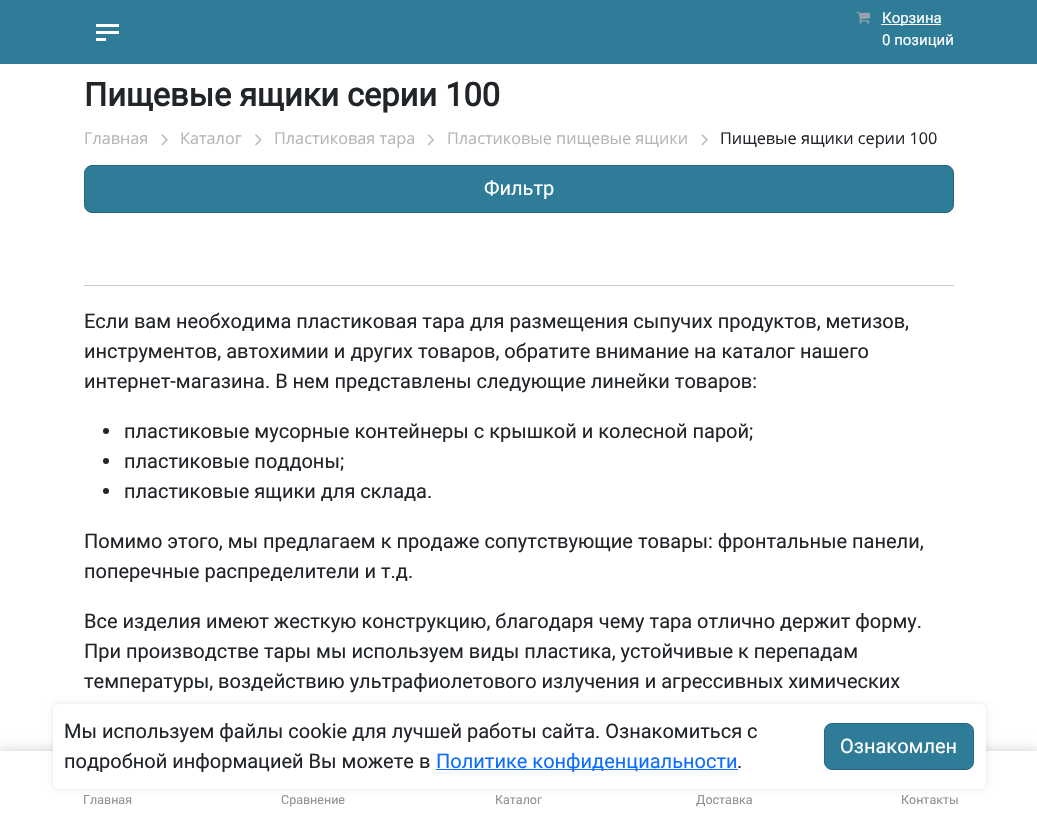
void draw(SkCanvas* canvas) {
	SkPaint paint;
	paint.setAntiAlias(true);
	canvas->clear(0xffffffff);
	paint.setColor(0xff2f7c99);
	canvas->drawRect(SkRect::MakeXYWH(0, 0, 1037, 64), paint);
	paint.setColor(0xffffffff);
	canvas->drawRect(SkRect::MakeXYWH(96, 24, 23, 3), paint);
	canvas->drawRect(SkRect::MakeXYWH(96, 31, 23, 3), paint);
	canvas->drawRect(SkRect::MakeXYWH(96, 38, 10, 3), paint);
	canvas->drawImageRect(SkImages::DeferredFromEncodedData(SkData::MakeFromFileName("img1.png")), SkRect::MakeXYWH(856, 11, 15, 13), SkSamplingOptions());
	canvas->drawRect(SkRect::MakeXYWH(881, 24, 60, 1), paint);
	SkFont f1(fontMgr->matchFamilyStyle("Roboto", SkFontStyle::Normal()), 15);
	f1.setSubpixel(true);
	canvas->drawString("Корзина", 882, 23, f1, paint);
	canvas->drawString("0 позиций", 882, 45, f1, paint);
	SkFont f2(fontMgr->matchFamilyStyle("Roboto", SkFontStyle::Bold()), 32.5);
	f2.setSubpixel(true);
	paint.setColor(0xff212529);
	canvas->drawString("Пищевые ящики серии 100", 84, 106, f2, paint);
	SkFont f3(fontMgr->matchFamilyStyle("Open Sans", SkFontStyle::Normal()), 16.25);
	f3.setSubpixel(true);
	paint.setColor(0xffb6b5b5);
	canvas->drawString("Главная", 84, 144, f3, paint);
	canvas->drawImageRect(SkImages::DeferredFromEncodedData(SkData::MakeFromFileName("img2.png")), SkRect::MakeXYWH(161, 134, 7, 12), SkSamplingOptions());
	canvas->drawString("Каталог", 180, 144, f3, paint);
	canvas->drawImageRect(SkImages::DeferredFromEncodedData(SkData::MakeFromFileName("img3.png")), SkRect::MakeXYWH(255, 134, 7, 12), SkSamplingOptions());
	canvas->drawString("Пластиковая тара", 274, 144, f3, paint);
	canvas->drawImageRect(SkImages::DeferredFromEncodedData(SkData::MakeFromFileName("img4.png")), SkRect::MakeXYWH(427, 134, 7, 12), SkSamplingOptions());
	canvas->drawString("Пластиковые пищевые ящики", 447, 144, f3, paint);
	canvas->drawImageRect(SkImages::DeferredFromEncodedData(SkData::MakeFromFileName("img2.png")), SkRect::MakeXYWH(701, 134, 7, 12), SkSamplingOptions());
	paint.setColor(0xff212529);
	canvas->drawString("Пищевые ящики серии 100", 720, 144, f3, paint);
	paint.setColor(0xff2f7c99);
	canvas->drawRoundRect(SkRect::MakeXYWH(84.5, 165.5, 869, 47), 7.5, 7.5, paint);
	paint.setStroke(true);
	paint.setStrokeWidth(1);
	paint.setColor(0xff27657c);
	canvas->drawRoundRect(SkRect::MakeXYWH(84.5, 165.5, 869, 47), 7.5, 7.5, paint);
	SkFont f4(fontMgr->matchFamilyStyle("Roboto", SkFontStyle::Normal()), 20);
	f4.setSubpixel(true);
	paint.setStroke(false);
	paint.setColor(0xffffffff);
	canvas->drawString("Фильтр", 484, 195, f4, paint);
	paint.setColor(0xffc8c9ca);
	canvas->drawRect(SkRect::MakeXYWH(84, 285, 870, 1), paint);
	paint.setColor(0xff212529);
	canvas->drawString("Если вам необходима пластиковая тара для размещения сыпучих продуктов, метизов,", 84, 328, f4, paint);
	canvas->drawString("инструментов, автохимии и других товаров, обратите внимание на каталог нашего", 84, 358, f4, paint);
	canvas->drawString("интернет-магазина. В нем представлены следующие линейки товаров:", 84, 388, f4, paint);
	canvas->drawCircle(106, 431, 3, paint);
	canvas->drawString("пластиковые мусорные контейнеры с крышкой и колесной парой;", 124, 438, f4, paint);
	canvas->drawCircle(106, 461, 3, paint);
	canvas->drawString("пластиковые поддоны;", 124, 468, f4, paint);
	canvas->drawCircle(106, 491, 3, paint);
	canvas->drawString("пластиковые ящики для склада.", 124, 498, f4, paint);
	canvas->drawString("Помимо этого, мы предлагаем к продаже сопутствующие товары: фронтальные панели,", 84, 548, f4, paint);
	canvas->drawString("поперечные распределители и т.д.", 84, 578, f4, paint);
	canvas->drawString("Все изделия имеют жесткую конструкцию, благодаря чему тара отлично держит форму.", 84, 628, f4, paint);
	canvas->drawString("При производстве тары мы используем виды пластика, устойчивые к перепадам", 84, 658, f4, paint);
	canvas->drawString("температуры, воздействию ультрафиолетового излучения и агрессивных химических", 84, 688, f4, paint);
	paint.setColor(0x26000000);
	paint.setMaskFilter(SkMaskFilter::MakeBlur(kNormal_SkBlurStyle, 5));
	canvas->drawRect(SkRect::MakeXYWH(0, 749, 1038, 62), paint);
	paint.setMaskFilter(nullptr);
	paint.setColor(0xffffffff);
	canvas->drawRect(SkRect::MakeXYWH(0, 751, 1037, 62), paint);
	paint.setColor(0x1a000000);
	paint.setMaskFilter(SkMaskFilter::MakeBlur(kNormal_SkBlurStyle, 3));
	canvas->drawRoundRect(SkRect::MakeXYWH(53, 704, 933, 85), 6, 6, paint);
	paint.setMaskFilter(nullptr);
	paint.setColor(0xffffffff);
	canvas->drawRoundRect(SkRect::MakeXYWH(53, 704, 933, 85), 6, 6, paint);
	paint.setColor(0xff212529);
	canvas->drawString("Мы используем файлы cookie для лучшей работы сайта. Ознакомиться с", 64, 738, f4, paint);
	canvas->drawString("подробной информацией Вы можете в", 64, 768, f4, paint);
	paint.setColor(0xff0d6efd);
	canvas->drawRect(SkRect::MakeXYWH(436, 769, 302, 1), paint);
	canvas->drawString("Политике конфиденциальности", 436, 768, f4, paint);
	paint.setColor(0xff212529);
	canvas->drawString(".", 737, 768, f4, paint);
	paint.setColor(0xff2f7c99);
	canvas->drawRoundRect(SkRect::MakeXYWH(824.5, 723.5, 149, 46), 7.5, 7.5, paint);
	paint.setStroke(true);
	paint.setColor(0xff27657c);
	canvas->drawRoundRect(SkRect::MakeXYWH(824.5, 723.5, 149, 46), 7.5, 7.5, paint);
	paint.setStroke(false);
	paint.setColor(0xffffffff);
	canvas->drawString("Ознакомлен", 840, 753, f4, paint);
	SkFont f5(fontMgr->matchFamilyStyle("Roboto", SkFontStyle::Normal()), 12.5);
	f5.setSubpixel(true);
	paint.setColor(0xff909090);
	canvas->drawString("Главная", 83, 804, f5, paint);
	canvas->drawString("Сравнение", 281, 804, f5, paint);
	canvas->drawString("Каталог", 495, 804, f5, paint);
	canvas->drawString("Доставка", 696, 804, f5, paint);
	canvas->drawString("Контакты", 901, 804, f5, paint);
}
